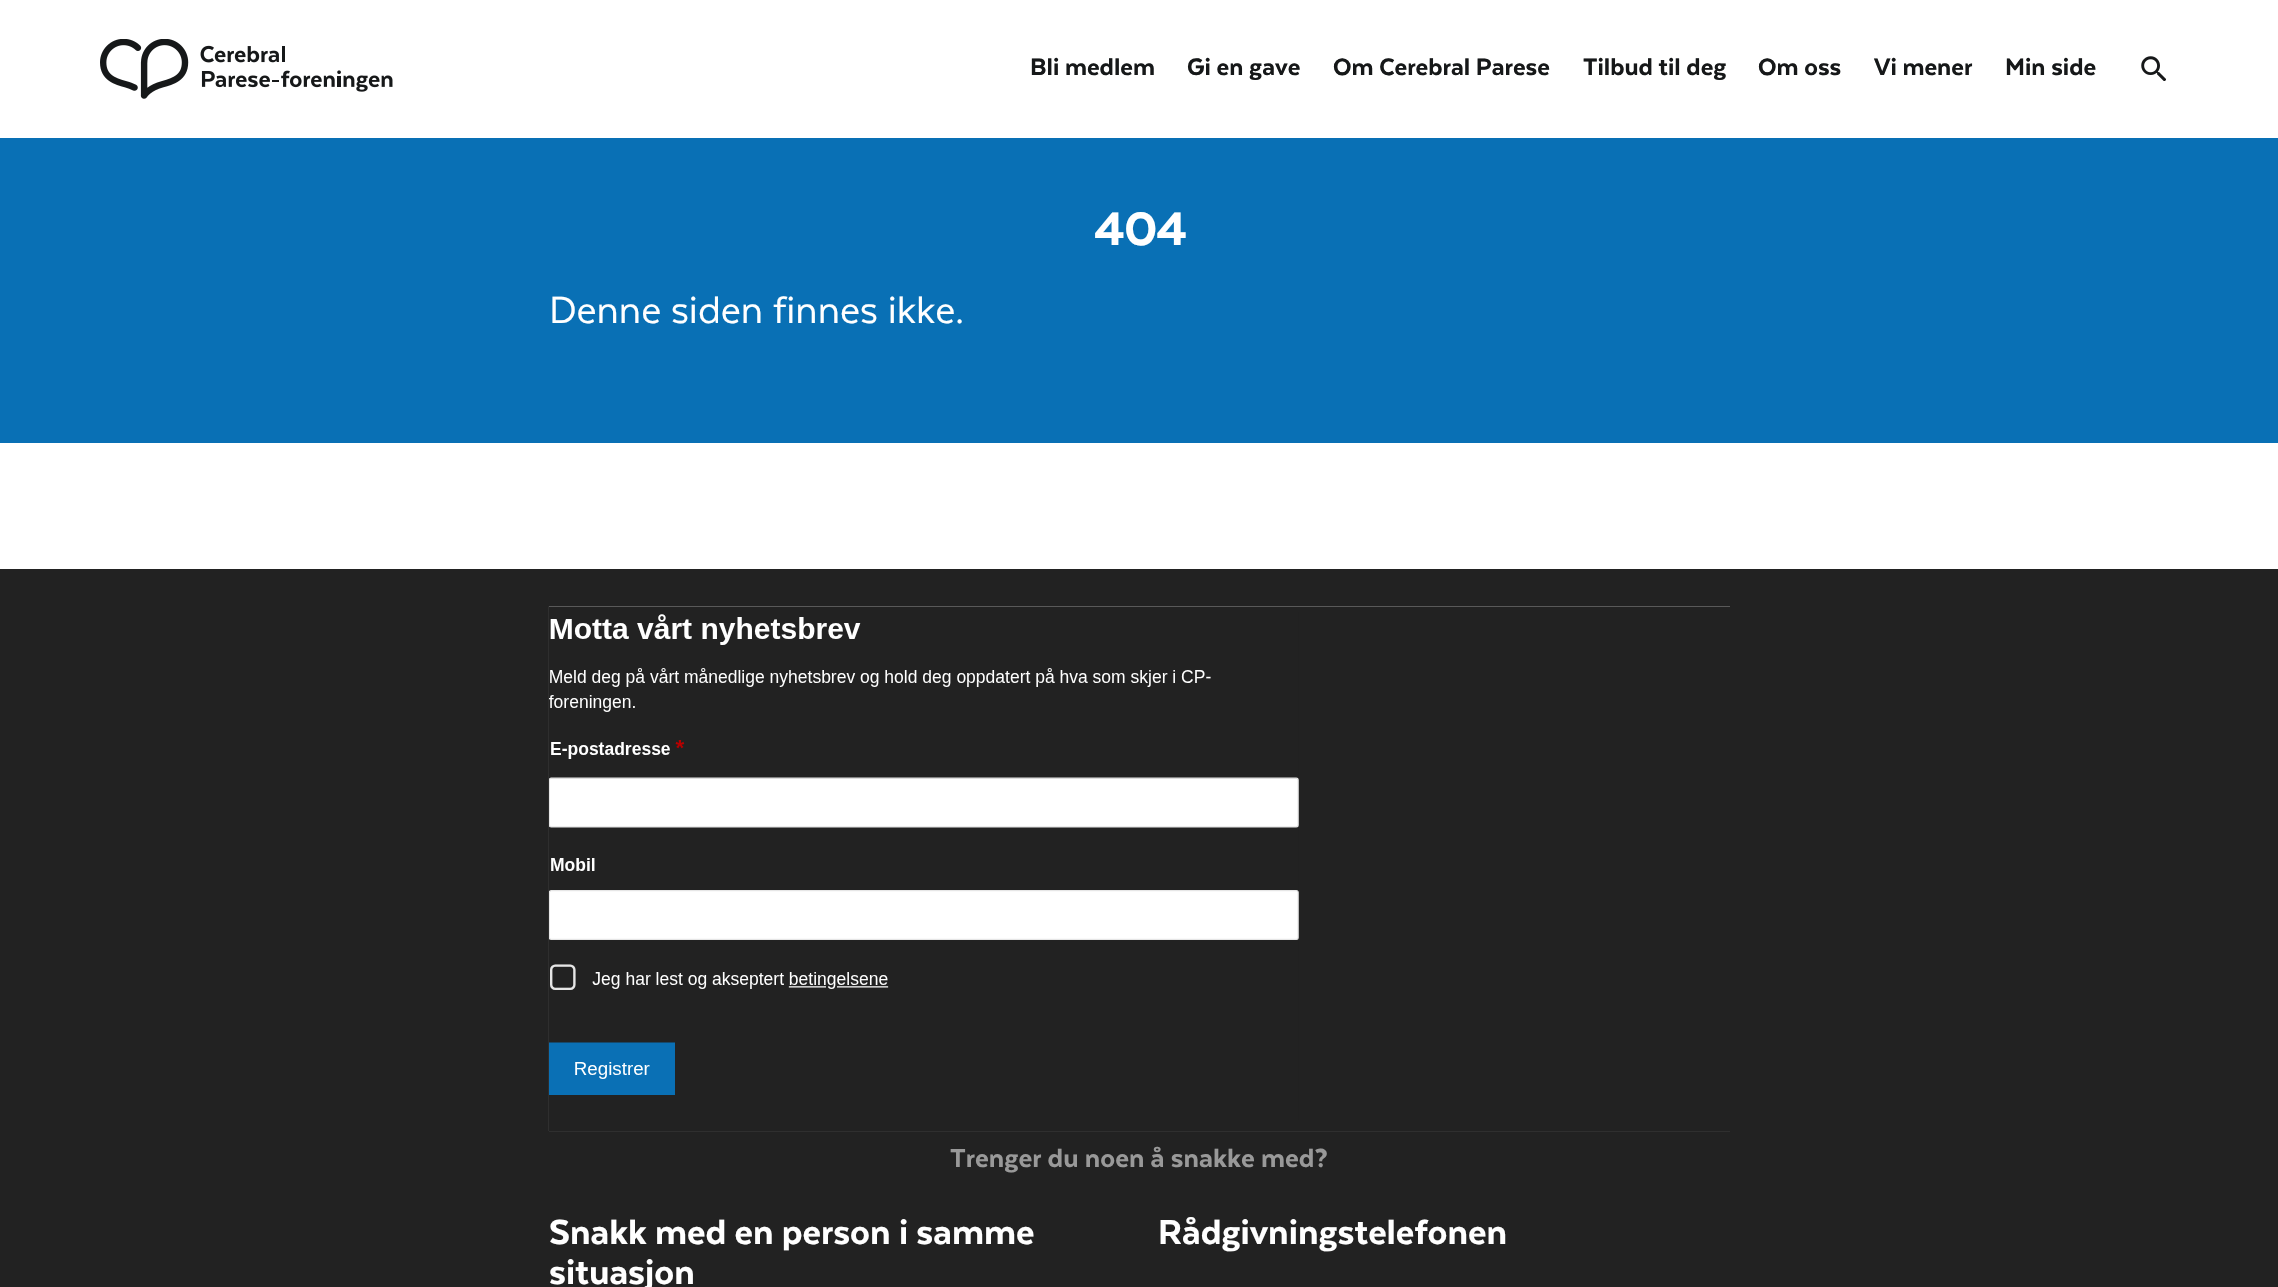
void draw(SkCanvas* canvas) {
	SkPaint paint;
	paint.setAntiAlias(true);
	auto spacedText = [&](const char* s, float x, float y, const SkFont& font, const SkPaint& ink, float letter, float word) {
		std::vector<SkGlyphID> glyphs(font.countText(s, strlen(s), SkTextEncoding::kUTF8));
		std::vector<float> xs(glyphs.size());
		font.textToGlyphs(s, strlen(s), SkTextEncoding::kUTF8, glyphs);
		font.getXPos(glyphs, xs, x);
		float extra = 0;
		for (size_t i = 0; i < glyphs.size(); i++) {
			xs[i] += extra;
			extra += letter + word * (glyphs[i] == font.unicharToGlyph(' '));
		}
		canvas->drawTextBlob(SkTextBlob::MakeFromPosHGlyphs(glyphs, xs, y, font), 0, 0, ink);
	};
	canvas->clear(0xffffffff);
	canvas->drawImageRect(SkImages::DeferredFromEncodedData(SkData::MakeFromFileName("img1.png")), SkRect::MakeXYWH(100, 39, 293, 60), SkSamplingOptions());
	SkFont f1(fontMgr->matchFamilyStyle("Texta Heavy", SkFontStyle::Normal()), 27.5);
	f1.setSubpixel(true);
	paint.setColor(0xff161819);
	canvas->drawString("Bli medlem", 1030, 75, f1, paint);
	canvas->drawString("Gi en gave", 1187, 75, f1, paint);
	canvas->drawString("Om Cerebral Parese", 1333, 75, f1, paint);
	canvas->drawString("Tilbud til deg", 1583, 75, f1, paint);
	canvas->drawString("Om oss", 1758, 75, f1, paint);
	canvas->drawString("Vi mener", 1874, 75, f1, paint);
	canvas->drawString("Min side", 2005, 75, f1, paint);
	canvas->drawImageRect(SkImages::DeferredFromEncodedData(SkData::MakeFromFileName("img2.png")), SkRect::MakeXYWH(2141, 56, 25, 25), SkSamplingOptions());
	paint.setColor(0xff0970b5);
	canvas->drawRect(SkRect::MakeXYWH(0, 138, 2278, 305), paint);
	SkFont f2(fontMgr->matchFamilyStyle("Texta Heavy", SkFontStyle::Normal()), 54);
	f2.setSubpixel(true);
	paint.setColor(0xffffffff);
	spacedText("404", 1094, 245, f2, paint, -1, 0);
	SkFont f3(fontMgr->matchFamilyStyle("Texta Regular", SkFontStyle::Normal()), 43.75);
	f3.setSubpixel(true);
	canvas->drawString("Denne siden finnes ikke.", 549, 323, f3, paint);
	paint.setColor(0xff222222);
	canvas->drawRect(SkRect::MakeXYWH(0, 569, 2278, 718), paint);
	canvas->drawImageRect(SkImages::DeferredFromEncodedData(SkData::MakeFromFileName("img3.png")), SkRect::MakeXYWH(548, 606, 1182, 526), SkSamplingOptions());
	SkFont f4(fontMgr->matchFamilyStyle("Texta Heavy", SkFontStyle::Normal()), 30);
	f4.setSubpixel(true);
	paint.setColor(0xff999999);
	canvas->drawString("Trenger du noen å snakke med?", 950, 1167, f4, paint);
	SkFont f5(fontMgr->matchFamilyStyle("Texta Heavy", SkFontStyle::Normal()), 40);
	f5.setSubpixel(true);
	paint.setColor(0xffffffff);
	canvas->drawString("Snakk med en person i samme", 549, 1244, f5, paint);
	canvas->drawString("situasjon", 549, 1284, f5, paint);
	canvas->drawString("Rådgivningstelefonen", 1158, 1244, f5, paint);
}
